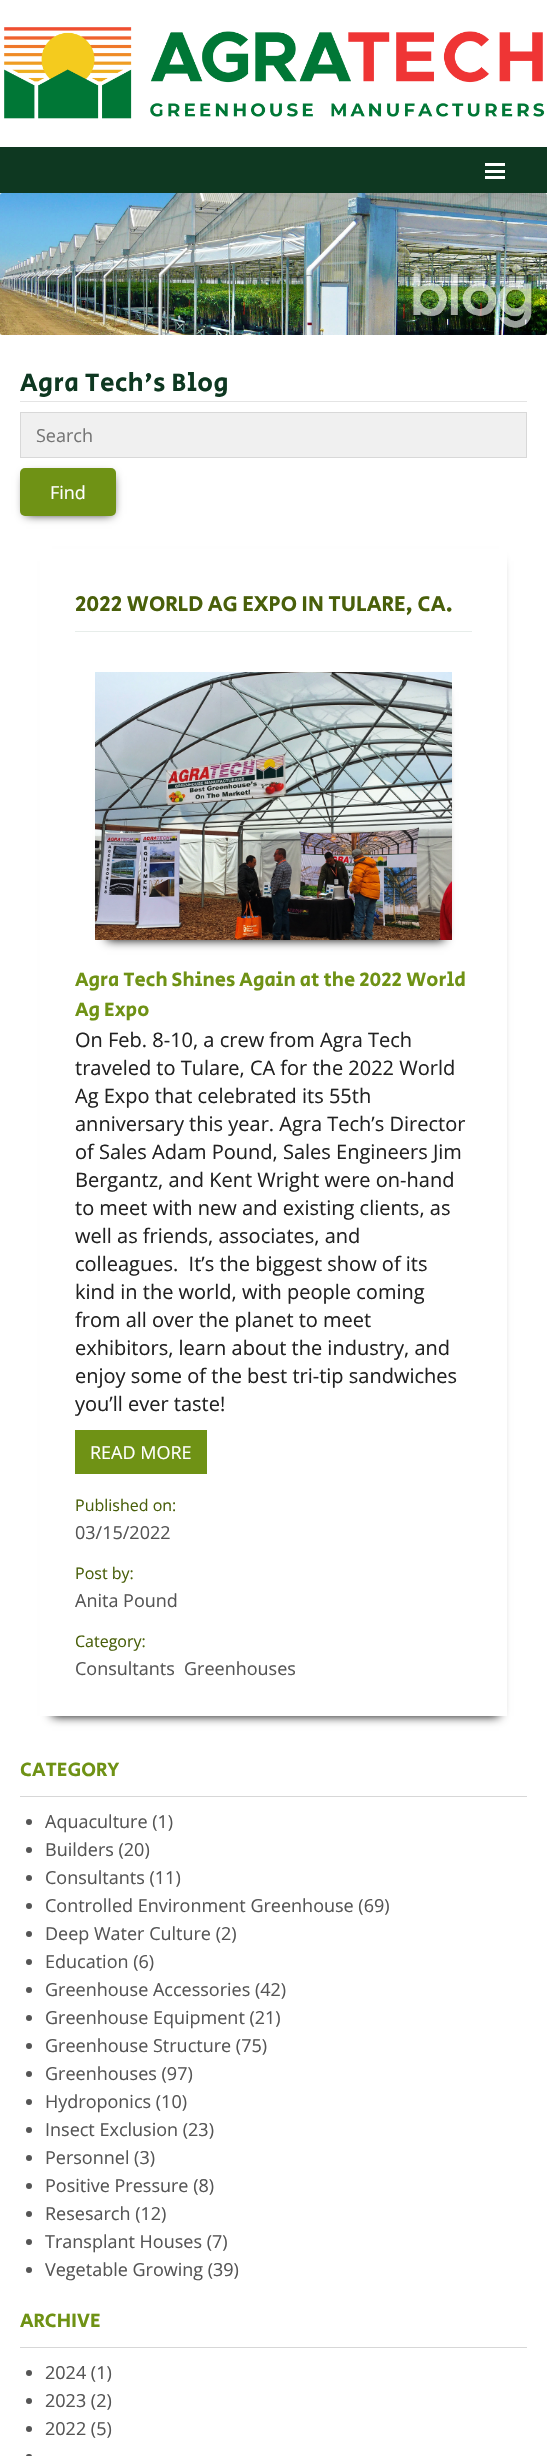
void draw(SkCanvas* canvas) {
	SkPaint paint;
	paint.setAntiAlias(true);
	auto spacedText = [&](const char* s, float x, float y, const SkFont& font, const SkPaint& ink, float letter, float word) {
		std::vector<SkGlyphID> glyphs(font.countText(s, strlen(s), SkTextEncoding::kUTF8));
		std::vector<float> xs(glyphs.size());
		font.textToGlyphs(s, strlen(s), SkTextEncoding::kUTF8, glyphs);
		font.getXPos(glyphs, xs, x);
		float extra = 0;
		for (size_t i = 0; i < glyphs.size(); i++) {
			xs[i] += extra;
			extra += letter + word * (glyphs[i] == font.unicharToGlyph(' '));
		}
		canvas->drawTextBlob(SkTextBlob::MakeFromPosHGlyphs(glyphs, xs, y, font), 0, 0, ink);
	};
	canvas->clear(0xffffffff);
	canvas->drawImageRect(SkImages::DeferredFromEncodedData(SkData::MakeFromFileName("img1.png")), SkRect::MakeXYWH(4, 27, 541, 92), SkSamplingOptions());
	paint.setColor(0xff0e3821);
	canvas->drawRect(SkRect::MakeXYWH(0, 147, 547, 46), paint);
	paint.setColor(0xffffffff);
	canvas->drawRect(SkRect::MakeXYWH(485, 163, 20, 3), paint);
	canvas->drawRect(SkRect::MakeXYWH(485, 170, 20, 3), paint);
	canvas->drawRect(SkRect::MakeXYWH(485, 176, 20, 3), paint);
	canvas->drawImageRect(SkImages::DeferredFromEncodedData(SkData::MakeFromFileName("img2.png")), SkRect::MakeXYWH(0, 193, 547, 142), SkSamplingOptions());
	paint.setColor(0xffe4e4e4);
	canvas->drawRect(SkRect::MakeXYWH(20, 401, 507, 1), paint);
	SkFont f1(fontMgr->matchFamilyStyle("Secular One", SkFontStyle::Normal()), 26);
	f1.setSubpixel(true);
	paint.setColor(0xff0e3821);
	spacedText("Agra Tech's Blog", 20, 391, f1, paint, 0.4, 0);
	paint.setColor(0xfff0f0f0);
	canvas->drawRect(SkRect::MakeXYWH(20.5, 412.5, 506, 45), paint);
	paint.setStroke(true);
	paint.setStrokeWidth(1);
	paint.setColor(0xffd8d8d8);
	canvas->drawRect(SkRect::MakeXYWH(20.5, 412.5, 506, 45), paint);
	SkFont f2(fontMgr->matchFamilyStyle("Open Sans", SkFontStyle::Normal()), 18);
	f2.setSubpixel(true);
	paint.setStroke(false);
	paint.setColor(0xff757575);
	canvas->drawString("Search", 36, 442, f2, paint);
	paint.setColor(0xff000000);
	paint.setMaskFilter(SkMaskFilter::MakeBlur(kNormal_SkBlurStyle, 5));
	canvas->drawRect(SkRect::MakeXYWH(26, 476, 86, 38), paint);
	paint.setMaskFilter(nullptr);
	paint.setColor(0xff6f9215);
	canvas->drawRoundRect(SkRect::MakeXYWH(20, 468, 96, 48), 5, 5, paint);
	paint.setColor(0xffffffff);
	canvas->drawString("Find", 50, 499, f2, paint);
	paint.setColor(0xff000000);
	paint.setMaskFilter(SkMaskFilter::MakeBlur(kNormal_SkBlurStyle, 5));
	canvas->drawRect(SkRect::MakeXYWH(52, 561, 447, 1155), paint);
	paint.setMaskFilter(nullptr);
	paint.setColor(0xffffffff);
	canvas->drawRect(SkRect::MakeXYWH(40, 549, 467, 1167), paint);
	paint.setColor(0xffe7edea);
	canvas->drawRect(SkRect::MakeXYWH(75, 631, 397, 1), paint);
	SkFont f3(fontMgr->matchFamilyStyle("Secular One", SkFontStyle::Normal()), 22);
	f3.setSubpixel(true);
	paint.setColor(0xff495f0a);
	canvas->drawString("2022 WORLD AG EXPO IN TULARE, CA.", 75, 611, f3, paint);
	paint.setColor(0xff000000);
	paint.setMaskFilter(SkMaskFilter::MakeBlur(kNormal_SkBlurStyle, 5));
	canvas->drawRect(SkRect::MakeXYWH(107, 692, 337, 248), paint);
	paint.setMaskFilter(nullptr);
	canvas->drawImageRect(SkImages::DeferredFromEncodedData(SkData::MakeFromFileName("img3.png")), SkRect::MakeXYWH(95, 672, 357, 268), SkSamplingOptions());
	SkFont f4(fontMgr->matchFamilyStyle("Secular One", SkFontStyle::Normal()), 20);
	f4.setSubpixel(true);
	paint.setColor(0xff6f9215);
	canvas->drawString("Agra Tech Shines Again at the 2022 World", 75, 986, f4, paint);
	canvas->drawString("Ag Expo", 75, 1016, f4, paint);
	SkFont f5(fontMgr->matchFamilyStyle("Open Sans", SkFontStyle::Normal()), 20);
	f5.setSubpixel(true);
	paint.setColor(0xff222222);
	canvas->drawString("On Feb. 8-10, a crew from Agra Tech", 75, 1047, f5, paint);
	canvas->drawString("traveled to Tulare, CA for the 2022 World", 75, 1075, f5, paint);
	canvas->drawString("Ag Expo that celebrated its 55th", 75, 1103, f5, paint);
	canvas->drawString("anniversary this year. Agra Tech’s Director", 75, 1131, f5, paint);
	canvas->drawString("of Sales Adam Pound, Sales Engineers Jim", 75, 1159, f5, paint);
	canvas->drawString("Bergantz, and Kent Wright were on-hand", 75, 1187, f5, paint);
	canvas->drawString("to meet with new and existing clients, as", 75, 1215, f5, paint);
	canvas->drawString("well as friends, associates, and", 75, 1243, f5, paint);
	canvas->drawString("colleagues.  It’s the biggest show of its", 75, 1271, f5, paint);
	canvas->drawString("kind in the world, with people coming", 75, 1299, f5, paint);
	canvas->drawString("from all over the planet to meet", 75, 1327, f5, paint);
	canvas->drawString("exhibitors, learn about the industry, and", 75, 1355, f5, paint);
	canvas->drawString("enjoy some of the best tri-tip sandwiches", 75, 1383, f5, paint);
	canvas->drawString("you’ll ever taste!", 75, 1411, f5, paint);
	paint.setColor(0xff6f9215);
	canvas->drawRect(SkRect::MakeXYWH(75, 1430, 132, 44), paint);
	paint.setColor(0xffffffff);
	canvas->drawString("READ MORE", 90, 1459, f2, paint);
	SkFont f6(fontMgr->matchFamilyStyle("Open Sans", SkFontStyle::Normal()), 16);
	f6.setSubpixel(true);
	paint.setColor(0xff495f0a);
	canvas->drawString("Published on:", 75, 1511, f6, paint);
	paint.setColor(0xff555555);
	canvas->drawString("03/15/2022", 75, 1539, f2, paint);
	paint.setColor(0xff495f0a);
	canvas->drawString("Post by:", 75, 1579, f6, paint);
	paint.setColor(0xff555555);
	canvas->drawString("Anita Pound", 75, 1607, f2, paint);
	paint.setColor(0xff495f0a);
	canvas->drawString("Category:", 75, 1647, f6, paint);
	paint.setColor(0xff555555);
	canvas->drawString("Consultants", 75, 1675, f2, paint);
	canvas->drawString("Greenhouses", 184, 1675, f2, paint);
	paint.setColor(0xffd7d7d7);
	canvas->drawRect(SkRect::MakeXYWH(20, 1796, 507, 1), paint);
	paint.setColor(0xff6f9215);
	canvas->drawString("CATEGORY", 20, 1776, f4, paint);
	paint.setColor(0xff555555);
	canvas->drawCircle(29, 1822, 3, paint);
	canvas->drawString("Aquaculture (1)", 45, 1828, f2, paint);
	canvas->drawCircle(29, 1850, 3, paint);
	canvas->drawString("Builders (20)", 45, 1856, f2, paint);
	canvas->drawCircle(29, 1878, 3, paint);
	canvas->drawString("Consultants (11)", 45, 1884, f2, paint);
	canvas->drawCircle(29, 1906, 3, paint);
	canvas->drawString("Controlled Environment Greenhouse (69)", 45, 1912, f2, paint);
	canvas->drawCircle(29, 1934, 3, paint);
	canvas->drawString("Deep Water Culture (2)", 45, 1940, f2, paint);
	canvas->drawCircle(29, 1962, 3, paint);
	canvas->drawString("Education (6)", 45, 1968, f2, paint);
	canvas->drawCircle(29, 1990, 3, paint);
	canvas->drawString("Greenhouse Accessories (42)", 45, 1996, f2, paint);
	canvas->drawCircle(29, 2018, 3, paint);
	canvas->drawString("Greenhouse Equipment (21)", 45, 2024, f2, paint);
	canvas->drawCircle(29, 2046, 3, paint);
	canvas->drawString("Greenhouse Structure (75)", 45, 2052, f2, paint);
	canvas->drawCircle(29, 2074, 3, paint);
	canvas->drawString("Greenhouses (97)", 45, 2080, f2, paint);
	canvas->drawCircle(29, 2102, 3, paint);
	canvas->drawString("Hydroponics (10)", 45, 2108, f2, paint);
	canvas->drawCircle(29, 2130, 3, paint);
	canvas->drawString("Insect Exclusion (23)", 45, 2136, f2, paint);
	canvas->drawCircle(29, 2158, 3, paint);
	canvas->drawString("Personnel (3)", 45, 2164, f2, paint);
	canvas->drawCircle(29, 2186, 3, paint);
	canvas->drawString("Positive Pressure (8)", 45, 2192, f2, paint);
	canvas->drawCircle(29, 2214, 3, paint);
	canvas->drawString("Resesarch (12)", 45, 2220, f2, paint);
	canvas->drawCircle(29, 2242, 3, paint);
	canvas->drawString("Transplant Houses (7)", 45, 2248, f2, paint);
	canvas->drawCircle(29, 2270, 3, paint);
	canvas->drawString("Vegetable Growing (39)", 45, 2276, f2, paint);
	paint.setColor(0xffd7d7d7);
	canvas->drawRect(SkRect::MakeXYWH(20, 2347, 507, 1), paint);
	paint.setColor(0xff6f9215);
	canvas->drawString("ARCHIVE", 20, 2327, f4, paint);
	paint.setColor(0xff555555);
	canvas->drawCircle(29, 2373, 3, paint);
	canvas->drawString("2024 (1)", 45, 2379, f2, paint);
	canvas->drawCircle(29, 2401, 3, paint);
	canvas->drawString("2023 (2)", 45, 2407, f2, paint);
	canvas->drawCircle(29, 2429, 3, paint);
	canvas->drawString("2022 (5)", 45, 2435, f2, paint);
	canvas->drawRoundRect(SkRect::MakeXYWH(26, 2454, 6, 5), 3, 3, paint);
}
